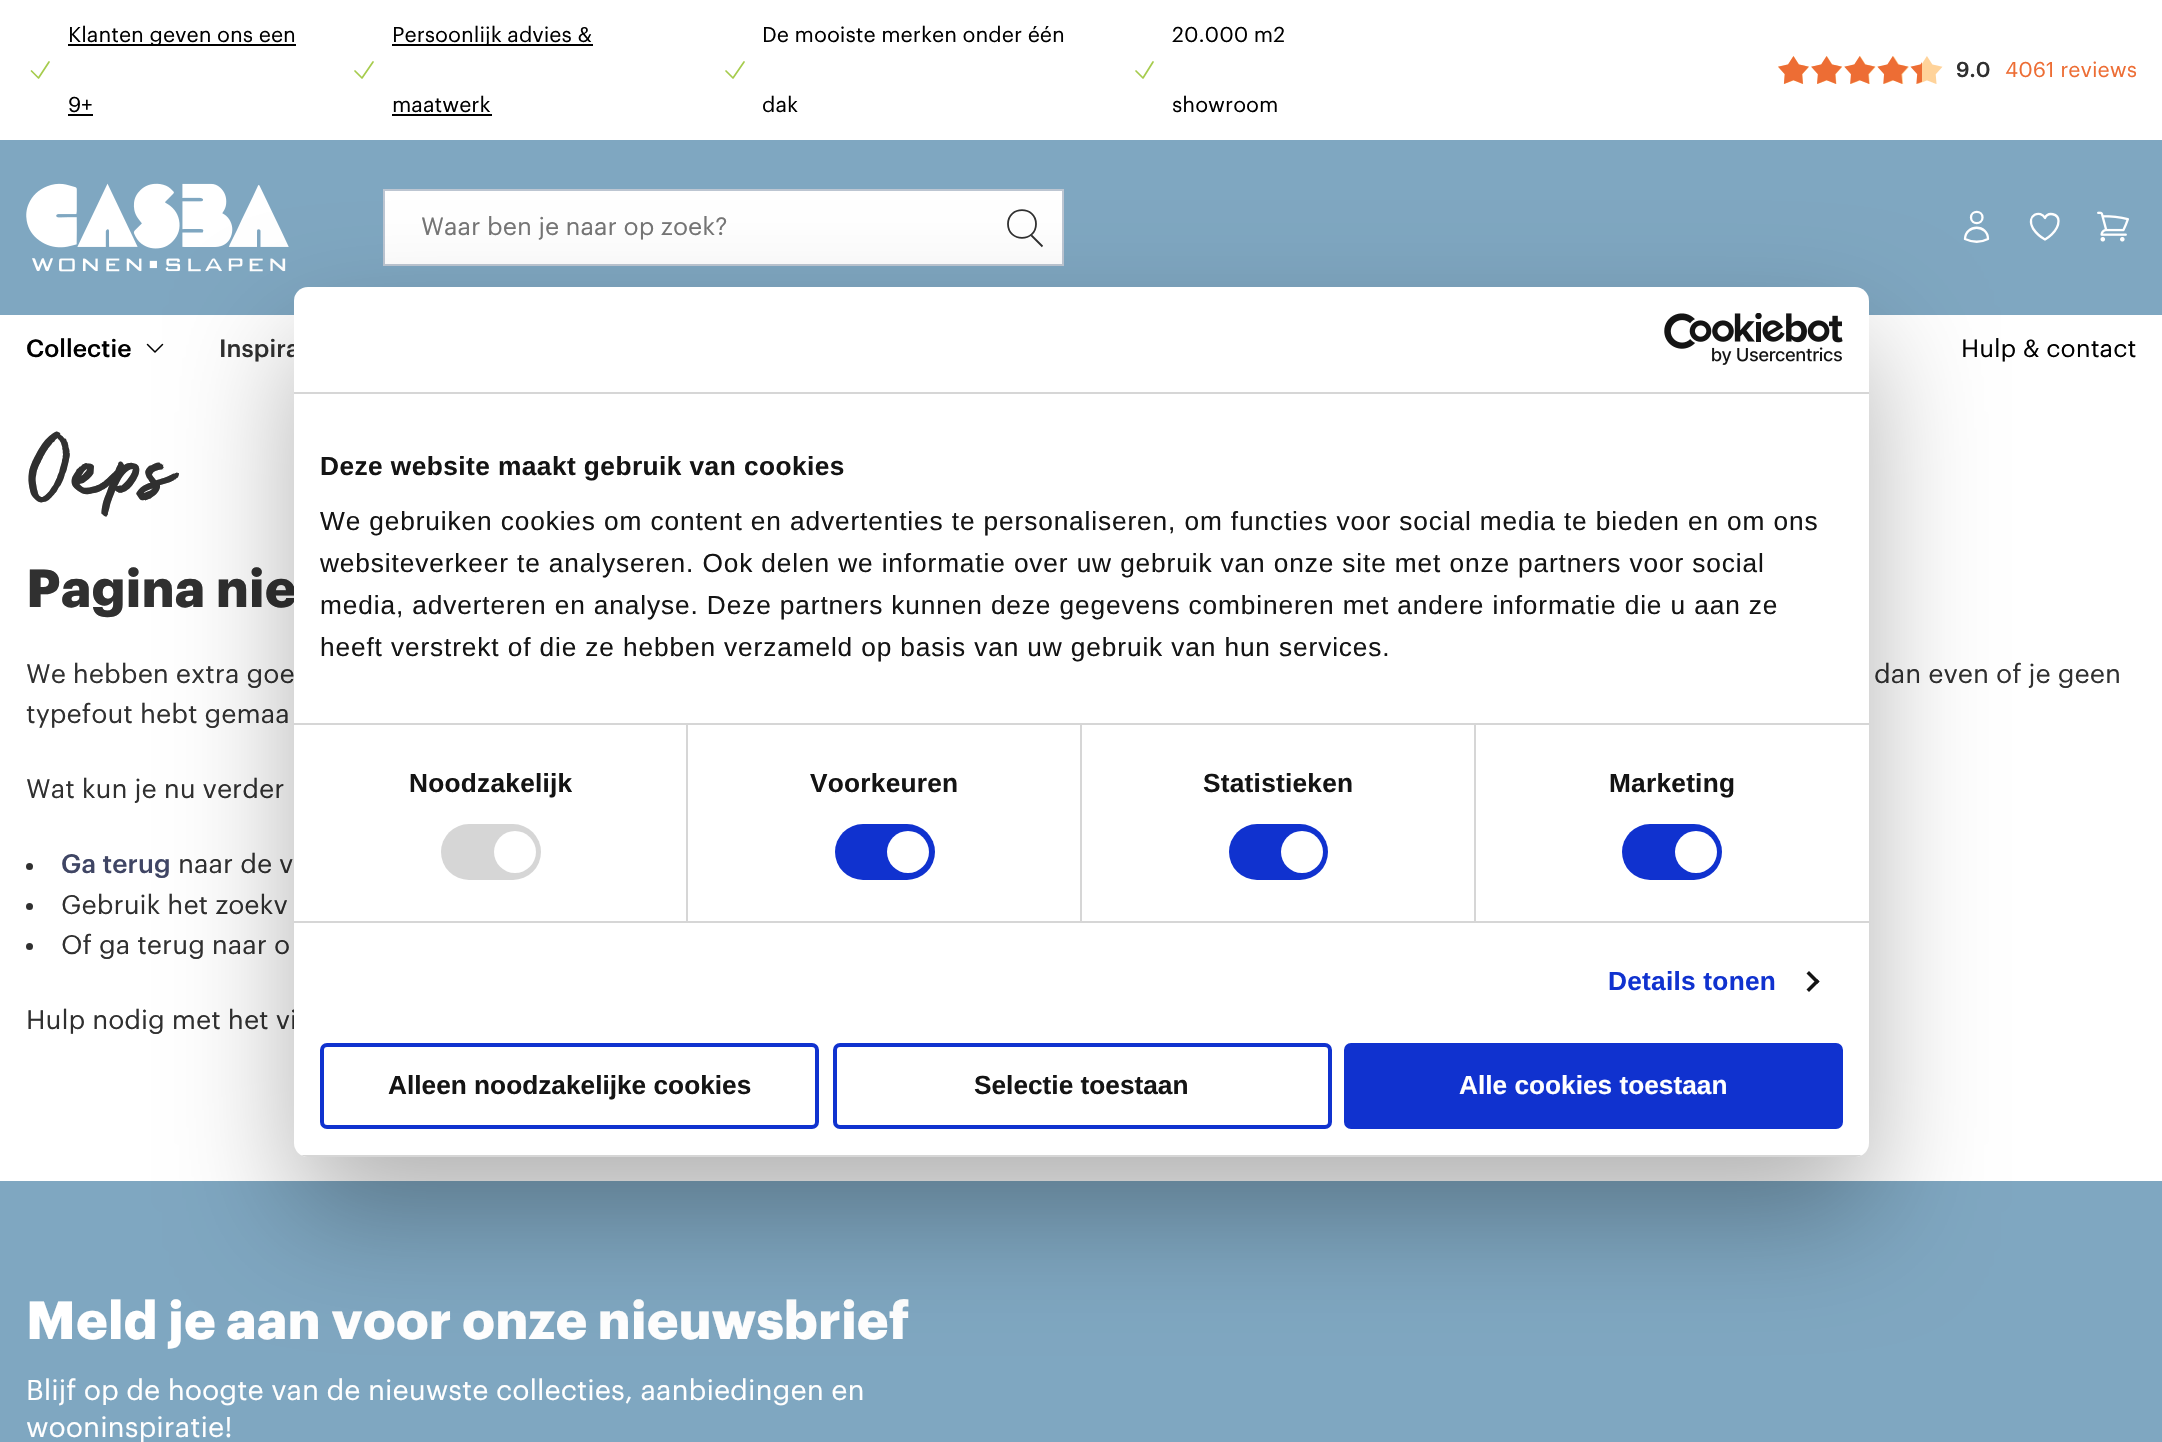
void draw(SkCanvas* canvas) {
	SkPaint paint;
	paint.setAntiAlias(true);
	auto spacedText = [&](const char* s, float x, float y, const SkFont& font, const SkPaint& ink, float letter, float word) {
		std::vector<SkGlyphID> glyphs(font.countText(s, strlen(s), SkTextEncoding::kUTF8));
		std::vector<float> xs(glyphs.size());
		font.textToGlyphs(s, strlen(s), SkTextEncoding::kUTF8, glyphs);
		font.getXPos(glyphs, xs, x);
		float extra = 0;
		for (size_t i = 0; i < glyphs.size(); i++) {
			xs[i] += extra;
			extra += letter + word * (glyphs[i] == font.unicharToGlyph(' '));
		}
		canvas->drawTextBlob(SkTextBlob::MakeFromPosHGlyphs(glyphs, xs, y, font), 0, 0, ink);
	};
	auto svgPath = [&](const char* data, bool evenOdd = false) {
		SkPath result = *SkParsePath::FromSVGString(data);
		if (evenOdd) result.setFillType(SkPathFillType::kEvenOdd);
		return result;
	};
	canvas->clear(0xffffffff);
	paint.setStroke(true);
	paint.setStrokeWidth(1.7);
	paint.setStrokeCap(SkPaint::kRound_Cap);
	paint.setStrokeJoin(SkPaint::kRound_Join);
	paint.setColor(0xffa6cc4d);
	canvas->drawPath(svgPath("M31.5 71L38.5 78L49 62"), paint);
	paint.setStroke(false);
	paint.setColor(0xff000000);
	canvas->drawRect(SkRect::MakeXYWH(68, 44, 228, 2), paint);
	SkFont f1(fontMgr->matchFamilyStyle("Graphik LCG", SkFontStyle::Normal()), 21);
	f1.setSubpixel(true);
	canvas->drawString("Klanten geven ons een", 68, 42, f1, paint);
	canvas->drawString("9+", 68, 112, f1, paint);
	canvas->drawRect(SkRect::MakeXYWH(68, 114, 25, 2), paint);
	paint.setStroke(true);
	paint.setColor(0xffa6cc4d);
	canvas->drawPath(svgPath("M355 71L362 78L373 62"), paint);
	paint.setStroke(false);
	paint.setColor(0xff000000);
	canvas->drawRect(SkRect::MakeXYWH(392, 44, 201, 2), paint);
	canvas->drawString("Persoonlijk advies &", 392, 42, f1, paint);
	canvas->drawString("maatwerk", 392, 112, f1, paint);
	canvas->drawRect(SkRect::MakeXYWH(392, 114, 100, 2), paint);
	paint.setStroke(true);
	paint.setColor(0xffa6cc4d);
	canvas->drawPath(svgPath("M726 71L733 78L744 62"), paint);
	paint.setStroke(false);
	paint.setColor(0xff000000);
	canvas->drawString("De mooiste merken onder één", 762, 42, f1, paint);
	canvas->drawString("dak", 762, 112, f1, paint);
	paint.setStroke(true);
	paint.setColor(0xffa6cc4d);
	canvas->drawPath(svgPath("M1136 71L1143 78L1153 62"), paint);
	paint.setStroke(false);
	paint.setColor(0xff000000);
	canvas->drawString("20.000 m2", 1172, 42, f1, paint);
	canvas->drawString("showroom", 1172, 112, f1, paint);
	canvas->drawImageRect(SkImages::DeferredFromEncodedData(SkData::MakeFromFileName("img1.png")), SkRect::MakeXYWH(1778, 56, 165, 28), SkSamplingOptions());
	canvas->drawImageRect(SkImages::DeferredFromEncodedData(SkData::MakeFromFileName("img2.png")), SkRect::MakeXYWH(1778, 56, 144, 28), SkSamplingOptions());
	SkFont f2(fontMgr->matchFamilyStyle("Graphik LCG", SkFontStyle(500, SkFontStyle::kNormal_Width, SkFontStyle::kUpright_Slant)), 21);
	f2.setSubpixel(true);
	paint.setColor(0xff303030);
	canvas->drawString("9.0", 1956, 77, f2, paint);
	paint.setColor(0xffed6d34);
	canvas->drawString("4061 reviews", 2005, 77, f1, paint);
	paint.setColor(0xff7fa7c1);
	canvas->drawRect(SkRect::MakeXYWH(0, 140, 2162, 175), paint);
	canvas->drawImageRect(SkImages::DeferredFromEncodedData(SkData::MakeFromFileName("img3.png")), SkRect::MakeXYWH(26, 183, 263, 89), SkSamplingOptions());
	paint.setColor(0xffffffff);
	canvas->drawRect(SkRect::MakeXYWH(384, 190, 679, 75), paint);
	paint.setStroke(true);
	paint.setStrokeWidth(2);
	paint.setStrokeCap(SkPaint::kButt_Cap);
	paint.setStrokeJoin(SkPaint::kMiter_Join);
	paint.setColor(0xffbdc6d2);
	canvas->drawRect(SkRect::MakeXYWH(384, 190, 679, 75), paint);
	SkFont f3(fontMgr->matchFamilyStyle("Graphik LCG", SkFontStyle::Normal()), 24.5);
	f3.setSubpixel(true);
	paint.setStroke(false);
	paint.setColor(0xff757575);
	canvas->drawString("Waar ben je naar op zoek?", 421, 235, f3, paint);
	paint.setStroke(true);
	paint.setStrokeWidth(1.8);
	paint.setColor(0xff303030);
	canvas->drawPath(svgPath("M1031.5 235.5L1042.5 246.5M1036 224C1036 242.5 1008 242.5 1008 224C1008 205.5 1036 205.5 1036 224Z"), paint);
	paint.setStrokeWidth(2.3);
	paint.setStrokeCap(SkPaint::kRound_Cap);
	paint.setStrokeJoin(SkPaint::kRound_Join);
	paint.setColor(0xffffffff);
	canvas->drawPath(svgPath("M1982.5 217.5C1982.5 225 1971 225 1971 217.5C1971 210 1982.5 210 1982.5 217.5ZM1965 239C1965.5 224 1988 224 1988 239C1981 242.5 1972.5 242.5 1965 239Z"), paint);
	canvas->drawPath(svgPath("M2058.5 221C2058.5 213.5 2048 211.5 2045 218C2041 209.5 2025.5 214.5 2033 228.5C2036 233 2040.5 237 2045 239.5C2045 239.5 2058.5 232 2058.5 221Z"), paint);
	canvas->drawImageRect(SkImages::DeferredFromEncodedData(SkData::MakeFromFileName("img4.png")), SkRect::MakeXYWH(2097, 211, 32, 31), SkSamplingOptions());
	SkFont f4(fontMgr->matchFamilyStyle("Graphik LCG", SkFontStyle(500, SkFontStyle::kNormal_Width, SkFontStyle::kUpright_Slant)), 24.5);
	f4.setSubpixel(true);
	paint.setStroke(false);
	paint.setColor(0xff000000);
	canvas->drawString("Collectie", 26, 357, f4, paint);
	paint.setStroke(true);
	paint.setStrokeWidth(1.5);
	canvas->drawPath(svgPath("M162.5 344.5L155 352L147.5 344.5"), paint);
	paint.setStroke(false);
	paint.setColor(0xff303030);
	canvas->drawString("Inspira", 219, 357, f4, paint);
	paint.setColor(0xff000000);
	canvas->drawString("Hulp & contact", 1961, 357, f3, paint);
	SkFont f5(fontMgr->matchFamilyStyle("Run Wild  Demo", SkFontStyle::Bold()), 88);
	f5.setSubpixel(true);
	paint.setColor(0xff303030);
	canvas->drawString("Oeps", 26, 494, f5, paint);
	SkFont f6(fontMgr->matchFamilyStyle("Graphik LCG", SkFontStyle::Bold()), 52.5);
	f6.setSubpixel(true);
	canvas->drawString("Pagina nie", 26, 607, f6, paint);
	SkFont f7(fontMgr->matchFamilyStyle("Graphik LCG", SkFontStyle::Normal()), 26.25);
	f7.setSubpixel(true);
	canvas->drawString("We hebben extra goe", 26, 683, f7, paint);
	canvas->drawString("dan even of je geen", 1874, 683, f7, paint);
	canvas->drawString("typefout hebt gemaa", 26, 723, f7, paint);
	canvas->drawString("Wat kun je nu verder", 26, 798, f7, paint);
	canvas->drawCircle(29.5, 866.5, 3.5, paint);
	SkFont f8(fontMgr->matchFamilyStyle("Graphik LCG", SkFontStyle(500, SkFontStyle::kNormal_Width, SkFontStyle::kUpright_Slant)), 26.25);
	f8.setSubpixel(true);
	paint.setColor(0xff3f4564);
	canvas->drawString("Ga terug", 61, 873, f8, paint);
	paint.setColor(0xff303030);
	canvas->drawString("naar de v", 178, 873, f7, paint);
	canvas->drawCircle(29.5, 906.5, 3.5, paint);
	canvas->drawString("Gebruik het zoekv", 61, 914, f7, paint);
	canvas->drawCircle(29.5, 946.5, 3.5, paint);
	canvas->drawString("Of ga terug naar o", 61, 954, f7, paint);
	canvas->drawString("Hulp nodig met het vi", 26, 1029, f7, paint);
	paint.setColor(0xff7fa7c1);
	canvas->drawRect(SkRect::MakeXYWH(0, 1181, 2162, 261), paint);
	paint.setColor(0xffffffff);
	canvas->drawString("Meld je aan voor onze nieuwsbrief", 26, 1339, f6, paint);
	SkFont f9(fontMgr->matchFamilyStyle("Graphik LCG", SkFontStyle::Normal()), 28);
	f9.setSubpixel(true);
	canvas->drawString("Blijf op de hoogte van de nieuwste collecties, aanbiedingen en", 26, 1400, f9, paint);
	canvas->drawString("wooninspiratie!", 26, 1437, f9, paint);
	paint.setColor(0x4d000000);
	paint.setMaskFilter(SkMaskFilter::MakeBlur(kNormal_SkBlurStyle, 59.5));
	canvas->drawRoundRect(SkRect::MakeXYWH(294, 343, 1575, 870), 14, 14, paint);
	paint.setMaskFilter(nullptr);
	paint.setColor(0xffffffff);
	canvas->drawRoundRect(SkRect::MakeXYWH(294, 287, 1575, 870), 14, 14, paint);
	paint.setColor(0xffd6d6d6);
	canvas->drawRect(SkRect::MakeXYWH(294, 392, 1575, 2), paint);
	canvas->drawImageRect(SkImages::DeferredFromEncodedData(SkData::MakeFromFileName("img5.png")), SkRect::MakeXYWH(1664, 313, 179, 52), SkSamplingOptions());
	canvas->drawRect(SkRect::MakeXYWH(294, 723, 1575, 2), paint);
	SkFont f10(fontMgr->matchFamilyStyle("Liberation Sans", SkFontStyle::Bold()), 26.25);
	f10.setSubpixel(true);
	paint.setColor(0xff141414);
	spacedText("Deze website maakt gebruik van cookies", 320, 475, f10, paint, 0.45, 0);
	SkFont f11(fontMgr->matchFamilyStyle("Liberation Sans", SkFontStyle::Normal()), 26.25);
	f11.setSubpixel(true);
	spacedText("We gebruiken cookies om content en advertenties te personaliseren, om functies voor social media te bieden en om ons", 320, 530, f11, paint, 0.88, 0);
	spacedText("websiteverkeer te analyseren. Ook delen we informatie over uw gebruik van onze site met onze partners voor social", 320, 572, f11, paint, 0.88, 0);
	spacedText("media, adverteren en analyse. Deze partners kunnen deze gegevens combineren met andere informatie die u aan ze", 320, 614, f11, paint, 0.88, 0);
	spacedText("heeft verstrekt of die ze hebben verzameld op basis van uw gebruik van hun services.", 320, 656, f11, paint, 0.88, 0);
	paint.setColor(0xffd6d6d6);
	canvas->drawRect(SkRect::MakeXYWH(294, 921, 1575, 2), paint);
	canvas->drawRect(SkRect::MakeXYWH(686, 725, 2, 196), paint);
	paint.setColor(0xff141414);
	spacedText("Noodzakelijk", 409, 792, f10, paint, 0.25, 0);
	paint.setColor(0xffd6d6d6);
	canvas->drawRoundRect(SkRect::MakeXYWH(441, 824, 100, 56), 28, 28, paint);
	paint.setColor(0xffffffff);
	canvas->drawCircle(515, 852, 21, paint);
	paint.setColor(0xffd6d6d6);
	canvas->drawRect(SkRect::MakeXYWH(1080, 725, 2, 196), paint);
	paint.setColor(0xff141414);
	spacedText("Voorkeuren", 810, 792, f10, paint, 0.25, 0);
	paint.setColor(0xff1032cf);
	canvas->drawRoundRect(SkRect::MakeXYWH(835, 824, 100, 56), 28, 28, paint);
	paint.setColor(0xffffffff);
	canvas->drawCircle(908, 852, 21, paint);
	paint.setColor(0xffd6d6d6);
	canvas->drawRect(SkRect::MakeXYWH(1474, 725, 2, 196), paint);
	paint.setColor(0xff141414);
	spacedText("Statistieken", 1203, 792, f10, paint, 0.25, 0);
	paint.setColor(0xff1032cf);
	canvas->drawRoundRect(SkRect::MakeXYWH(1229, 824, 99, 56), 28, 28, paint);
	paint.setColor(0xffffffff);
	canvas->drawCircle(1302, 852, 21, paint);
	paint.setColor(0xff141414);
	spacedText("Marketing", 1609, 792, f10, paint, 0.25, 0);
	paint.setColor(0xff1032cf);
	canvas->drawRoundRect(SkRect::MakeXYWH(1622, 824, 100, 56), 28, 28, paint);
	paint.setColor(0xffffffff);
	canvas->drawCircle(1696, 852, 21, paint);
	paint.setColor(0xff1032cf);
	spacedText("Details tonen", 1608, 990, f10, paint, 0.25, 0);
	paint.setColor(0xff141414);
	canvas->drawPath(svgPath("M1809 971L1819.5 981.5L1817 984L1806.5 973.5Z"), paint);
	canvas->drawPath(svgPath("M1817 979L1819.5 981.5L1809 992L1806.5 989.5Z"), paint);
	canvas->save();
	canvas->clipPath(svgPath("M308 287H1855C1862.5 287 1869 293.5 1869 301V1143C1869 1150.5 1862.5 1157 1855 1157H308C300.5 1157 294 1150.5 294 1143V301C294 293.5 300.5 287 308 287Z"), true);
	paint.setColor(0xffd6d6d6);
	canvas->drawRect(SkRect::MakeXYWH(294, 1155, 1575, 2), paint);
	canvas->restore();
	paint.setStroke(true);
	paint.setStrokeWidth(4);
	paint.setStrokeCap(SkPaint::kButt_Cap);
	paint.setStrokeJoin(SkPaint::kMiter_Join);
	paint.setColor(0xff1032cf);
	canvas->drawRoundRect(SkRect::MakeXYWH(322, 1045, 495, 82), 5, 5, paint);
	paint.setStroke(false);
	paint.setColor(0xff141414);
	canvas->drawString("Alleen noodzakelijke cookies", 388, 1094, f10, paint);
	paint.setStroke(true);
	paint.setColor(0xff1032cf);
	canvas->drawRoundRect(SkRect::MakeXYWH(835, 1045, 495, 82), 5, 5, paint);
	paint.setStroke(false);
	paint.setColor(0xff141414);
	canvas->drawString("Selectie toestaan", 974, 1094, f10, paint);
	paint.setColor(0xff1032cf);
	canvas->drawRoundRect(SkRect::MakeXYWH(1346, 1045, 495, 82), 5, 5, paint);
	paint.setStroke(true);
	canvas->drawRoundRect(SkRect::MakeXYWH(1346, 1045, 495, 82), 5, 5, paint);
	paint.setStroke(false);
	paint.setColor(0xffffffff);
	canvas->drawString("Alle cookies toestaan", 1459, 1094, f10, paint);
}
